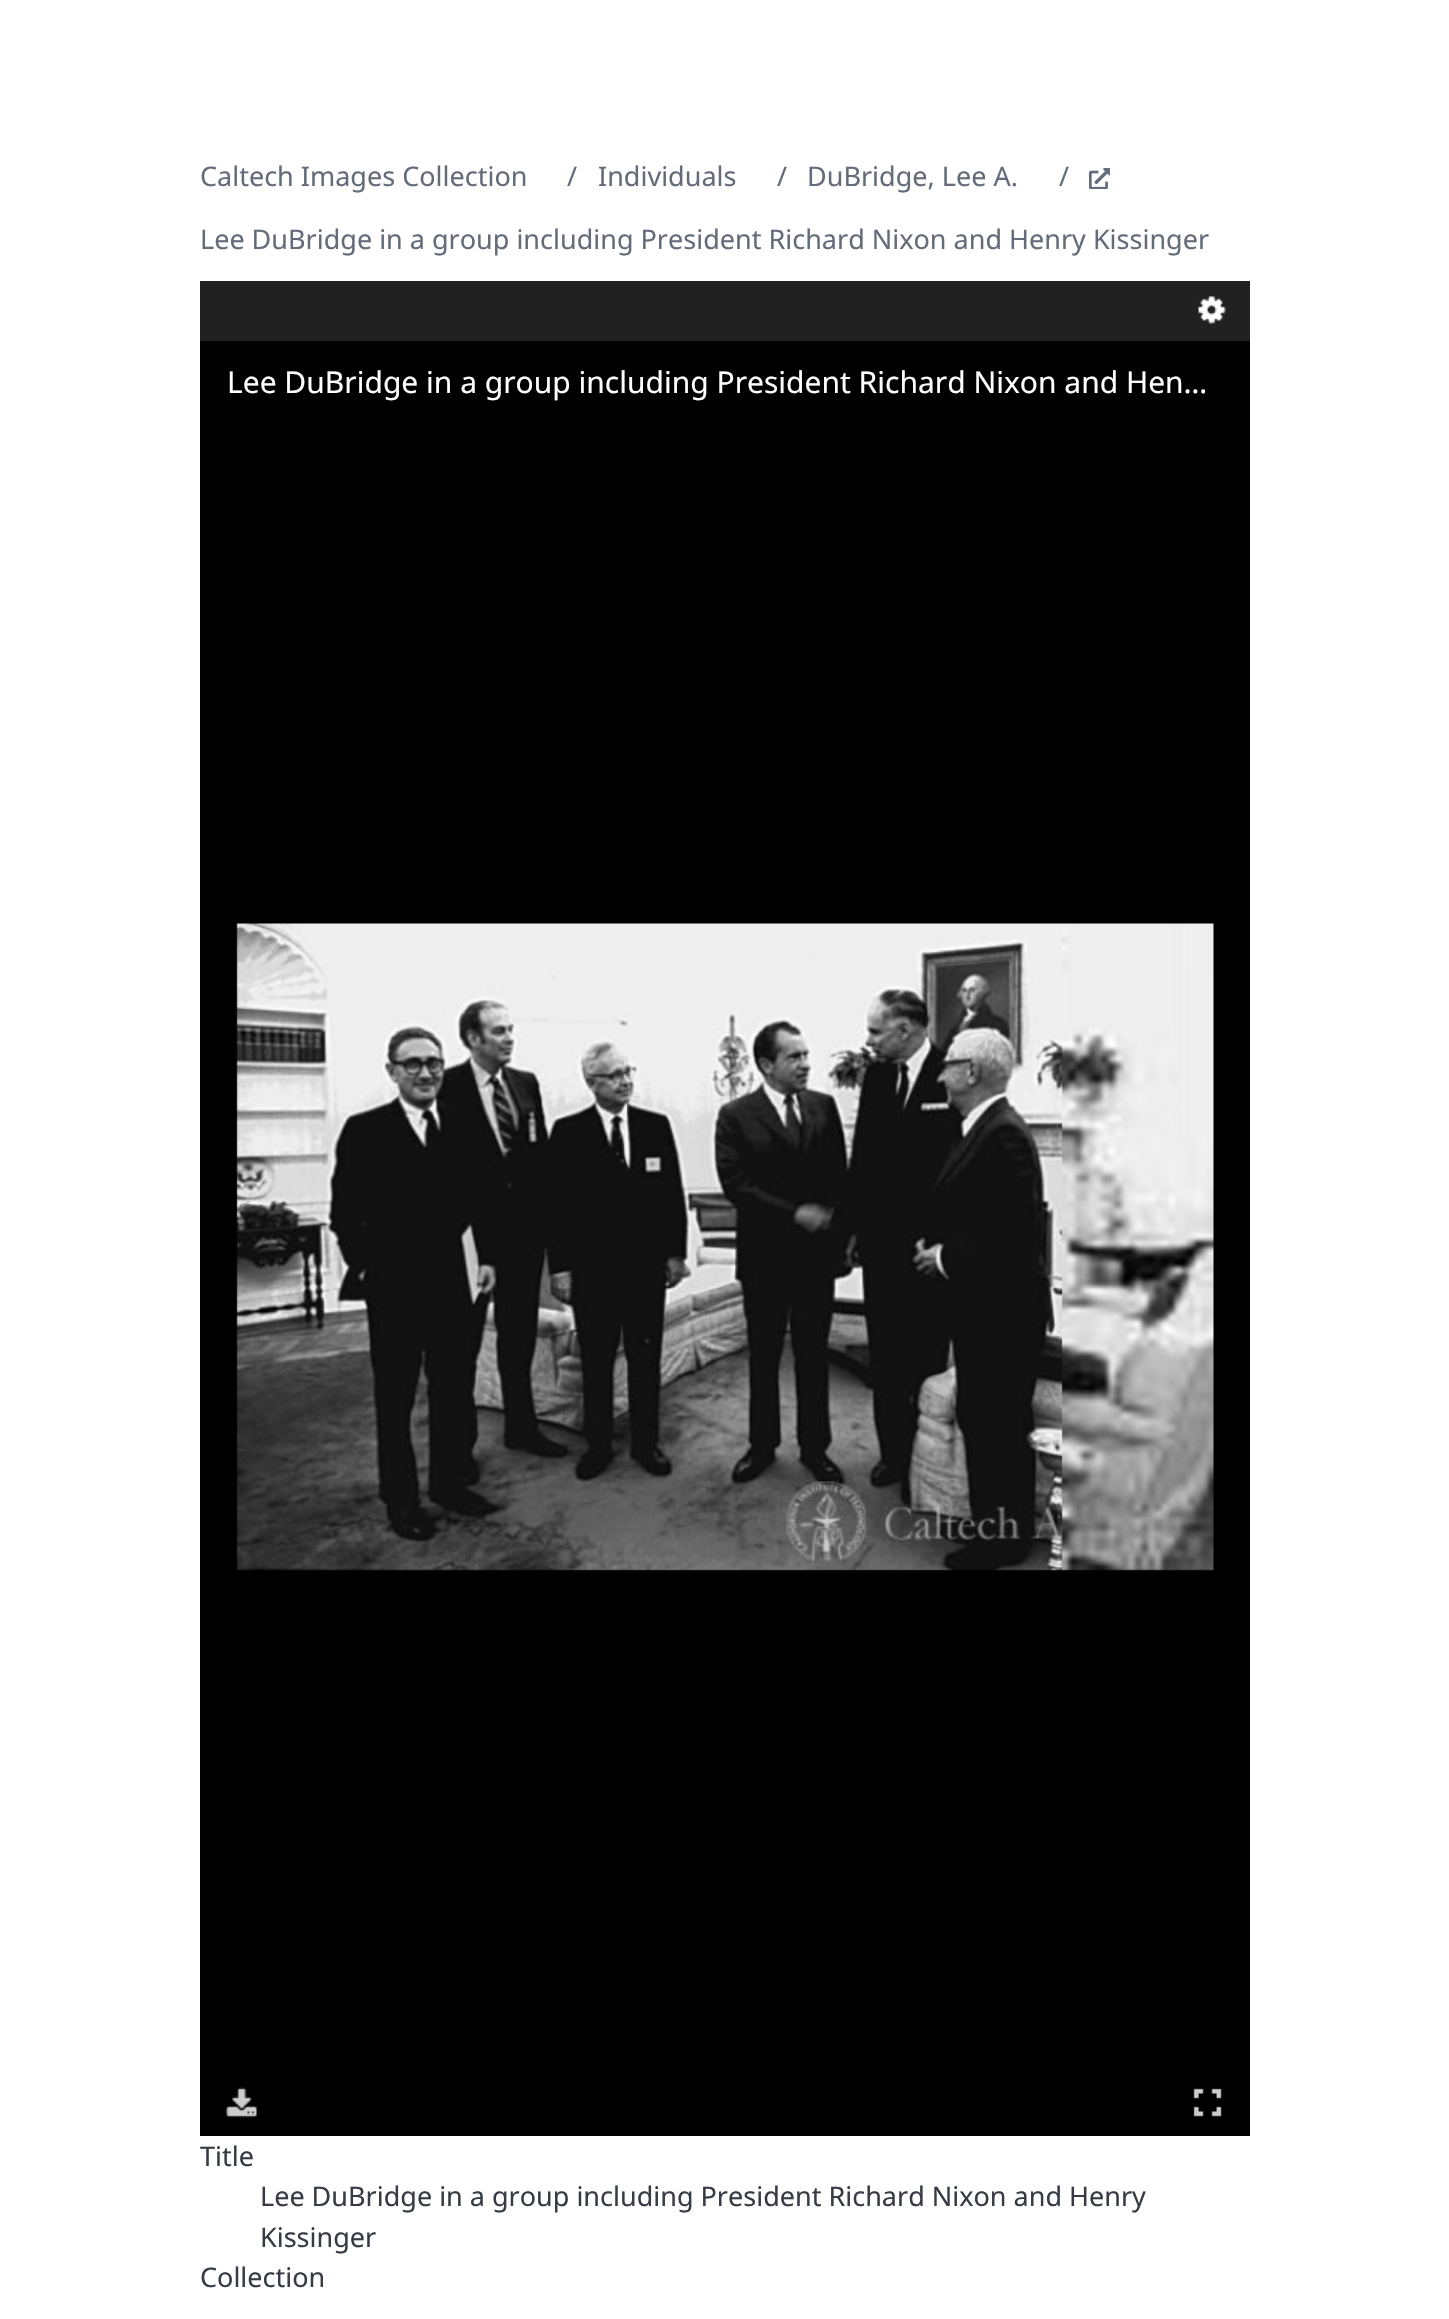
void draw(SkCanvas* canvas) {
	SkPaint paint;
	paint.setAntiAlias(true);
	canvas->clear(0xffffffff);
	SkFont f1(fontMgr->matchFamilyStyle("Noto Sans", SkFontStyle::Normal()), 27);
	f1.setSubpixel(true);
	paint.setColor(0xff646b79);
	canvas->drawString("Caltech Images Collection", 200, 186, f1, paint);
	canvas->drawString("/", 567, 186, f1, paint);
	canvas->drawString("Individuals", 598, 186, f1, paint);
	canvas->drawString("/", 777, 186, f1, paint);
	canvas->drawString("DuBridge, Lee A.", 807, 186, f1, paint);
	canvas->drawString("/", 1059, 186, f1, paint);
	canvas->drawImageRect(SkImages::DeferredFromEncodedData(SkData::MakeFromFileName("img1.png")), SkRect::MakeXYWH(1089, 168, 21, 21), SkSamplingOptions());
	canvas->drawString("Lee DuBridge in a group including President Richard Nixon and Henry Kissinger", 200, 249, f1, paint);
	paint.setColor(0xff000000);
	canvas->drawRect(SkRect::MakeXYWH(200, 341, 1050, 1795), paint);
	paint.setColor(0xff212121);
	canvas->drawRect(SkRect::MakeXYWH(200, 281, 1050, 60), paint);
	canvas->drawImageRect(SkImages::DeferredFromEncodedData(SkData::MakeFromFileName("img2.png")), SkRect::MakeXYWH(1198, 296, 28, 28), SkSamplingOptions());
	SkFont f2(fontMgr->matchFamilyStyle("Noto Sans", SkFontStyle::Normal()), 30);
	f2.setSubpixel(true);
	paint.setColor(0xffffffff);
	canvas->drawString("Lee DuBridge in a group including President Richard Nixon and Hen…", 227, 393, f2, paint);
	canvas->drawImageRect(SkImages::DeferredFromEncodedData(SkData::MakeFromFileName("img3.png")), SkRect::MakeXYWH(236, 923, 978, 648), SkSamplingOptions());
	canvas->drawImageRect(SkImages::DeferredFromEncodedData(SkData::MakeFromFileName("img4.png")), SkRect::MakeXYWH(226, 2087, 31, 31), SkSamplingOptions());
	canvas->drawImageRect(SkImages::DeferredFromEncodedData(SkData::MakeFromFileName("img5.png")), SkRect::MakeXYWH(1193, 2088, 29, 29), SkSamplingOptions());
	paint.setColor(0xff373c44);
	canvas->drawString("Title", 200, 2166, f1, paint);
	canvas->drawString("Lee DuBridge in a group including President Richard Nixon and Henry", 260, 2206, f1, paint);
	canvas->drawString("Kissinger", 260, 2247, f1, paint);
	canvas->drawString("Collection", 200, 2287, f1, paint);
}
